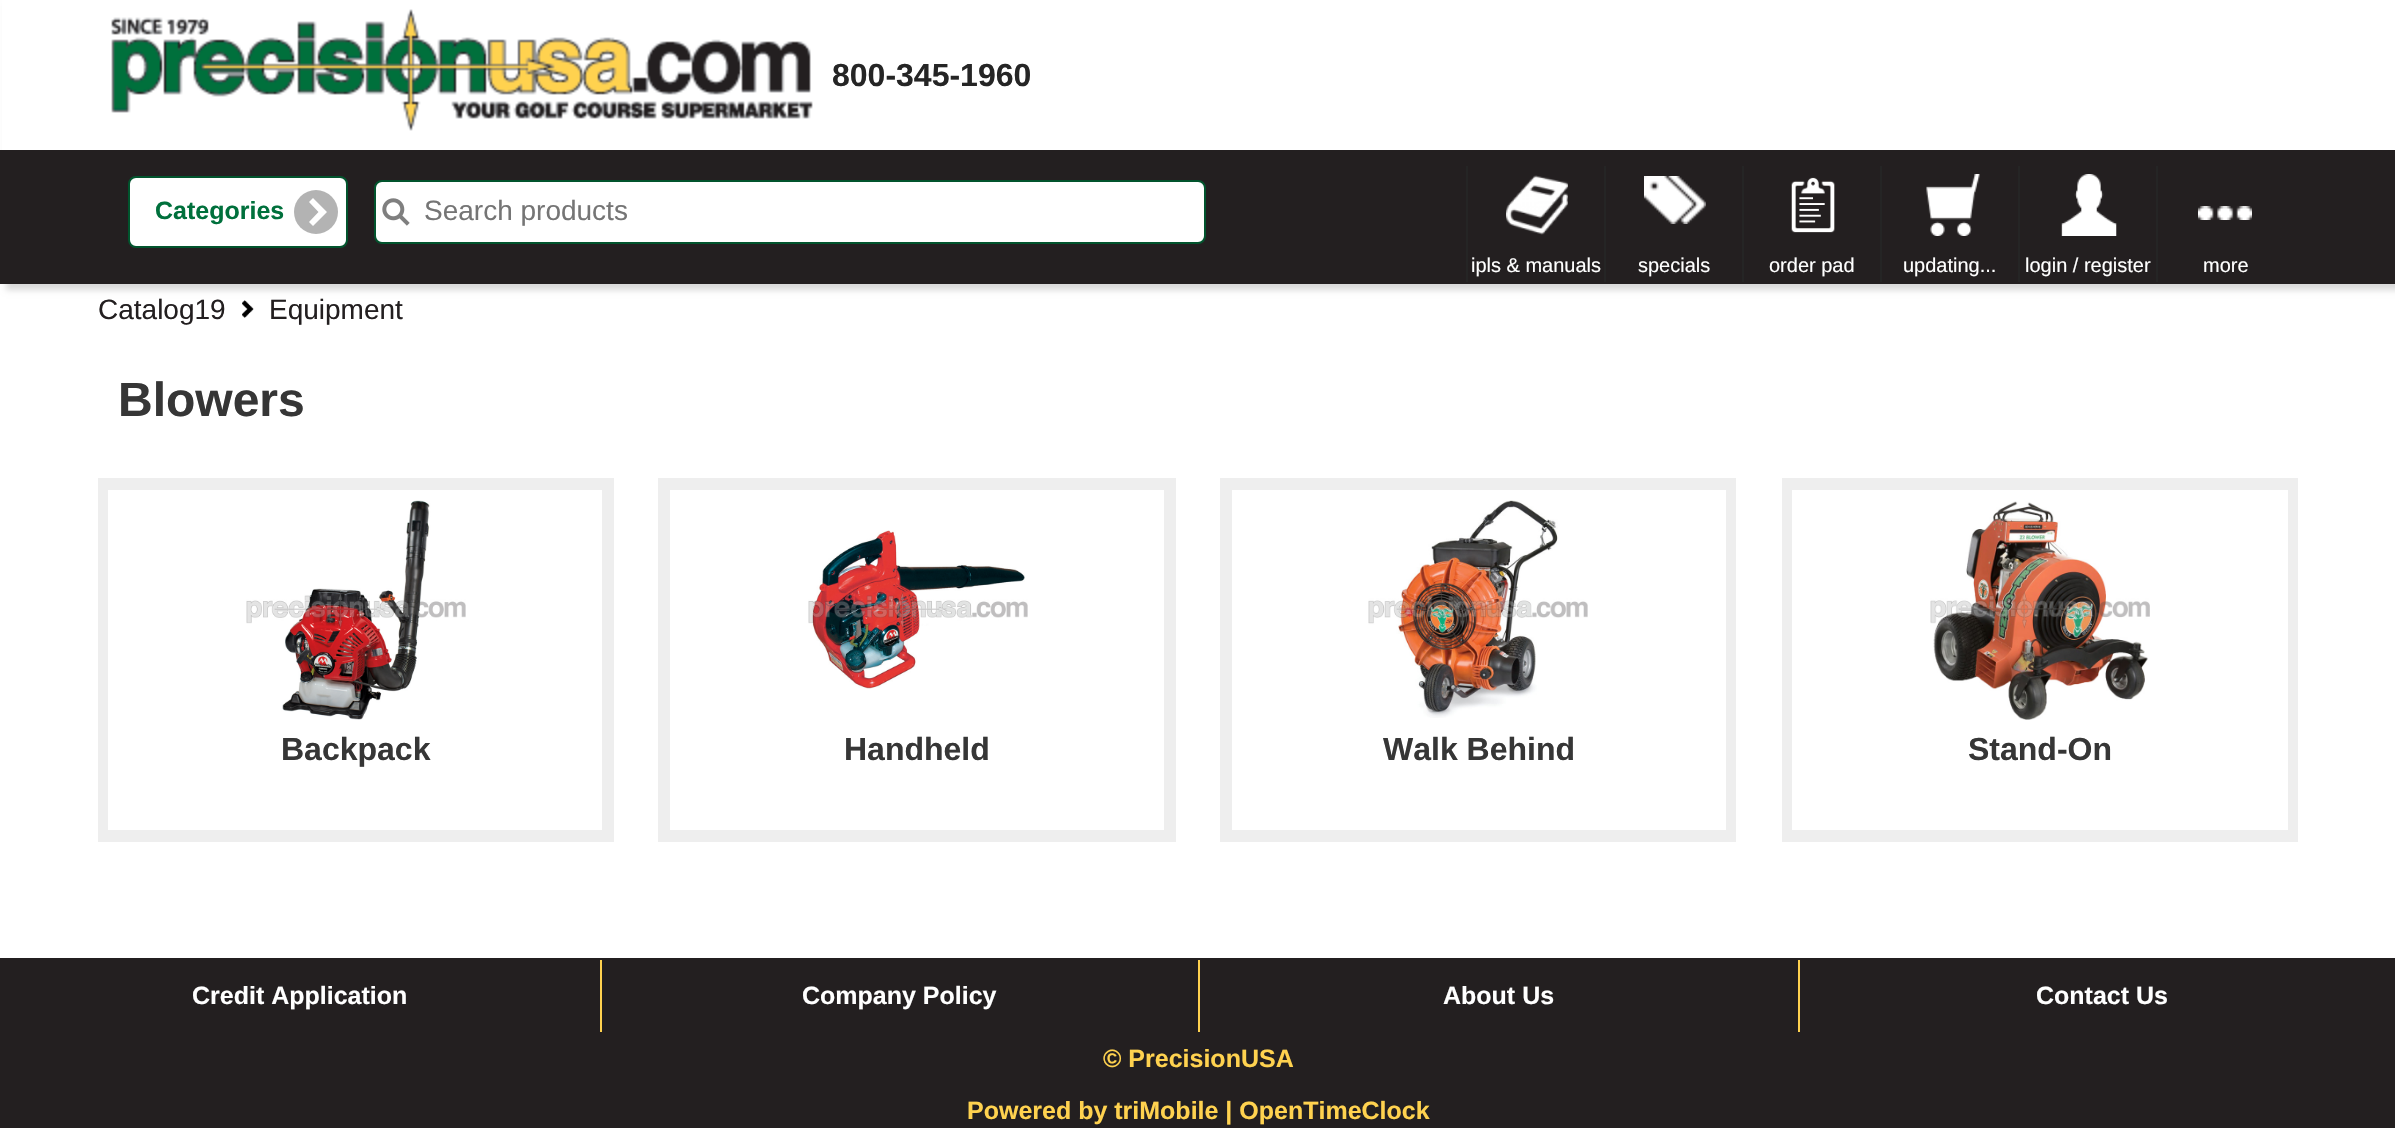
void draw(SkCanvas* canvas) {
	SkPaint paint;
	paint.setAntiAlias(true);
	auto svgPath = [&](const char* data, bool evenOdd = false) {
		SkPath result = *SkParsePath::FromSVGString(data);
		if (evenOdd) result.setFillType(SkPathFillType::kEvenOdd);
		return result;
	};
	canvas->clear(0xffffffff);
	paint.setColor(0x26000000);
	paint.setMaskFilter(SkMaskFilter::MakeBlur(kNormal_SkBlurStyle, 3));
	canvas->drawRect(SkRect::MakeXYWH(6, 4, 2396, 286), paint);
	paint.setMaskFilter(nullptr);
	paint.setColor(0xff231f20);
	canvas->drawRect(SkRect::MakeXYWH(0, 150, 2395, 134), paint);
	paint.setColor(0xffffffff);
	canvas->drawRect(SkRect::MakeXYWH(2, 0, 2393, 150), paint);
	canvas->drawImageRect(SkImages::DeferredFromEncodedData(SkData::MakeFromFileName("img1.png")), SkRect::MakeXYWH(111, 9, 702, 122), SkSamplingOptions());
	SkFont f1(fontMgr->matchFamilyStyle("Liberation Sans", SkFontStyle::Bold()), 32);
	f1.setSubpixel(true);
	paint.setColor(0xff252525);
	canvas->drawString("800-345-1960", 832, 86, f1, paint);
	paint.setColor(0xffffffff);
	canvas->drawRoundRect(SkRect::MakeXYWH(129, 177, 218, 70), 7, 7, paint);
	paint.setStroke(true);
	paint.setStrokeWidth(2);
	paint.setColor(0xff01542d);
	canvas->drawRoundRect(SkRect::MakeXYWH(129, 177, 218, 70), 7, 7, paint);
	SkFont f2(fontMgr->matchFamilyStyle("Liberation Sans", SkFontStyle::Bold()), 25);
	f2.setSubpixel(true);
	paint.setStroke(false);
	paint.setColor(0xff00703c);
	canvas->drawString("Categories", 155, 219, f2, paint);
	paint.setColor(0xffb3b3b3);
	canvas->drawCircle(316, 212, 22, paint);
	paint.setColor(0xffffffff);
	canvas->drawPath(svgPath("M309 202L318.5 212L309 222L313 226L327 212L313 198Z"), paint);
	canvas->drawRoundRect(SkRect::MakeXYWH(375, 181, 830, 62), 7, 7, paint);
	paint.setStroke(true);
	paint.setColor(0xff01542d);
	canvas->drawRoundRect(SkRect::MakeXYWH(375, 181, 830, 62), 7, 7, paint);
	canvas->drawImageRect(SkImages::DeferredFromEncodedData(SkData::MakeFromFileName("img2.png")), SkRect::MakeXYWH(382, 198, 28, 28), SkSamplingOptions());
	SkFont f3(fontMgr->matchFamilyStyle("Liberation Sans", SkFontStyle::Normal()), 28);
	f3.setSubpixel(true);
	paint.setStroke(false);
	paint.setColor(0xff757575);
	canvas->drawString("Search products", 424, 220, f3, paint);
	canvas->drawImageRect(SkImages::DeferredFromEncodedData(SkData::MakeFromFileName("img3.png")), SkRect::MakeXYWH(1506, 175, 62, 60), SkSamplingOptions());
	paint.setColor(0xff252525);
	canvas->drawRect(SkRect::MakeXYWH(1466, 166, 2, 116), paint);
	SkFont f4(fontMgr->matchFamilyStyle("Liberation Sans", SkFontStyle::Normal()), 20);
	f4.setSubpixel(true);
	paint.setColor(0xffffffff);
	canvas->drawString("ipls & manuals", 1471, 272, f4, paint);
	canvas->drawImageRect(SkImages::DeferredFromEncodedData(SkData::MakeFromFileName("img4.png")), SkRect::MakeXYWH(1644, 176, 62, 48), SkSamplingOptions());
	paint.setColor(0xff252525);
	canvas->drawRect(SkRect::MakeXYWH(1604, 166, 2, 116), paint);
	paint.setColor(0xffffffff);
	canvas->drawString("specials", 1638, 272, f4, paint);
	canvas->drawImageRect(SkImages::DeferredFromEncodedData(SkData::MakeFromFileName("img5.png")), SkRect::MakeXYWH(1791, 177, 44, 56), SkSamplingOptions());
	paint.setColor(0xff252525);
	canvas->drawRect(SkRect::MakeXYWH(1742, 166, 2, 116), paint);
	paint.setColor(0xffffffff);
	canvas->drawString("order pad", 1769, 272, f4, paint);
	canvas->drawImageRect(SkImages::DeferredFromEncodedData(SkData::MakeFromFileName("img6.png")), SkRect::MakeXYWH(1926, 174, 54, 62), SkSamplingOptions());
	paint.setColor(0xff252525);
	canvas->drawRect(SkRect::MakeXYWH(1880, 166, 2, 116), paint);
	paint.setColor(0xffffffff);
	canvas->drawString("updating...", 1903, 272, f4, paint);
	canvas->drawImageRect(SkImages::DeferredFromEncodedData(SkData::MakeFromFileName("img7.png")), SkRect::MakeXYWH(2061, 174, 56, 62), SkSamplingOptions());
	paint.setColor(0xff252525);
	canvas->drawRect(SkRect::MakeXYWH(2018, 166, 2, 116), paint);
	paint.setColor(0xffffffff);
	canvas->drawString("login / register", 2025, 272, f4, paint);
	canvas->drawImageRect(SkImages::DeferredFromEncodedData(SkData::MakeFromFileName("img8.png")), SkRect::MakeXYWH(2198, 206, 54, 14), SkSamplingOptions());
	paint.setColor(0xff252525);
	canvas->drawRect(SkRect::MakeXYWH(2156, 166, 2, 116), paint);
	paint.setColor(0xffffffff);
	canvas->drawString("more", 2203, 272, f4, paint);
	paint.setColor(0xff231f20);
	canvas->drawString("Catalog19", 98, 319, f3, paint);
	canvas->drawImageRect(SkImages::DeferredFromEncodedData(SkData::MakeFromFileName("img9.png")), SkRect::MakeXYWH(242, 300, 12, 18), SkSamplingOptions());
	canvas->drawString("Equipment", 269, 319, f3, paint);
	SkFont f5(fontMgr->matchFamilyStyle("Liberation Sans", SkFontStyle::Bold()), 48);
	f5.setSubpixel(true);
	paint.setColor(0xff363636);
	canvas->drawString("Blowers", 118, 416, f5, paint);
	paint.setColor(0xffeeeeee);
	canvas->drawRect(SkRect::MakeXYWH(98, 478, 516, 364), paint);
	paint.setColor(0xffffffff);
	canvas->drawRect(SkRect::MakeXYWH(108, 490, 494, 340), paint);
	canvas->drawImageRect(SkImages::DeferredFromEncodedData(SkData::MakeFromFileName("img10.png")), SkRect::MakeXYWH(246, 500, 220, 220), SkSamplingOptions());
	paint.setColor(0xff363636);
	canvas->drawString("Backpack", 281, 760, f1, paint);
	paint.setColor(0xffeeeeee);
	canvas->drawRect(SkRect::MakeXYWH(658, 478, 518, 364), paint);
	paint.setColor(0xffffffff);
	canvas->drawRect(SkRect::MakeXYWH(670, 490, 494, 340), paint);
	canvas->drawImageRect(SkImages::DeferredFromEncodedData(SkData::MakeFromFileName("img11.png")), SkRect::MakeXYWH(808, 530, 220, 159), SkSamplingOptions());
	paint.setColor(0xff363636);
	canvas->drawString("Handheld", 844, 760, f1, paint);
	paint.setColor(0xffeeeeee);
	canvas->drawRect(SkRect::MakeXYWH(1220, 478, 516, 364), paint);
	paint.setColor(0xffffffff);
	canvas->drawRect(SkRect::MakeXYWH(1232, 490, 494, 340), paint);
	canvas->drawImageRect(SkImages::DeferredFromEncodedData(SkData::MakeFromFileName("img12.png")), SkRect::MakeXYWH(1368, 500, 220, 218), SkSamplingOptions());
	paint.setColor(0xff363636);
	canvas->drawString("Walk Behind", 1383, 760, f1, paint);
	paint.setColor(0xffeeeeee);
	canvas->drawRect(SkRect::MakeXYWH(1782, 478, 516, 364), paint);
	paint.setColor(0xffffffff);
	canvas->drawRect(SkRect::MakeXYWH(1792, 490, 496, 340), paint);
	canvas->drawImageRect(SkImages::DeferredFromEncodedData(SkData::MakeFromFileName("img13.png")), SkRect::MakeXYWH(1930, 501, 220, 219), SkSamplingOptions());
	paint.setColor(0xff363636);
	canvas->drawString("Stand-On", 1968, 760, f1, paint);
	paint.setColor(0xff231f20);
	canvas->drawRect(SkRect::MakeXYWH(0, 958, 2395, 170), paint);
	paint.setColor(0xffffffff);
	canvas->drawString("Credit Application", 192, 1004, f2, paint);
	paint.setColor(0xffffd24f);
	canvas->drawRect(SkRect::MakeXYWH(600, 960, 2, 72), paint);
	paint.setColor(0xffffffff);
	canvas->drawString("Company Policy", 802, 1004, f2, paint);
	paint.setColor(0xffffd24f);
	canvas->drawRect(SkRect::MakeXYWH(1198, 960, 2, 72), paint);
	paint.setColor(0xffffffff);
	canvas->drawString("About Us", 1443, 1004, f2, paint);
	paint.setColor(0xffffd24f);
	canvas->drawRect(SkRect::MakeXYWH(1798, 960, 2, 72), paint);
	paint.setColor(0xffffffff);
	canvas->drawString("Contact Us", 2036, 1004, f2, paint);
	paint.setColor(0xffffd24f);
	canvas->drawString("© PrecisionUSA", 1103, 1067, f2, paint);
	canvas->drawString("Powered by triMobile | OpenTimeClock", 967, 1119, f2, paint);
}
